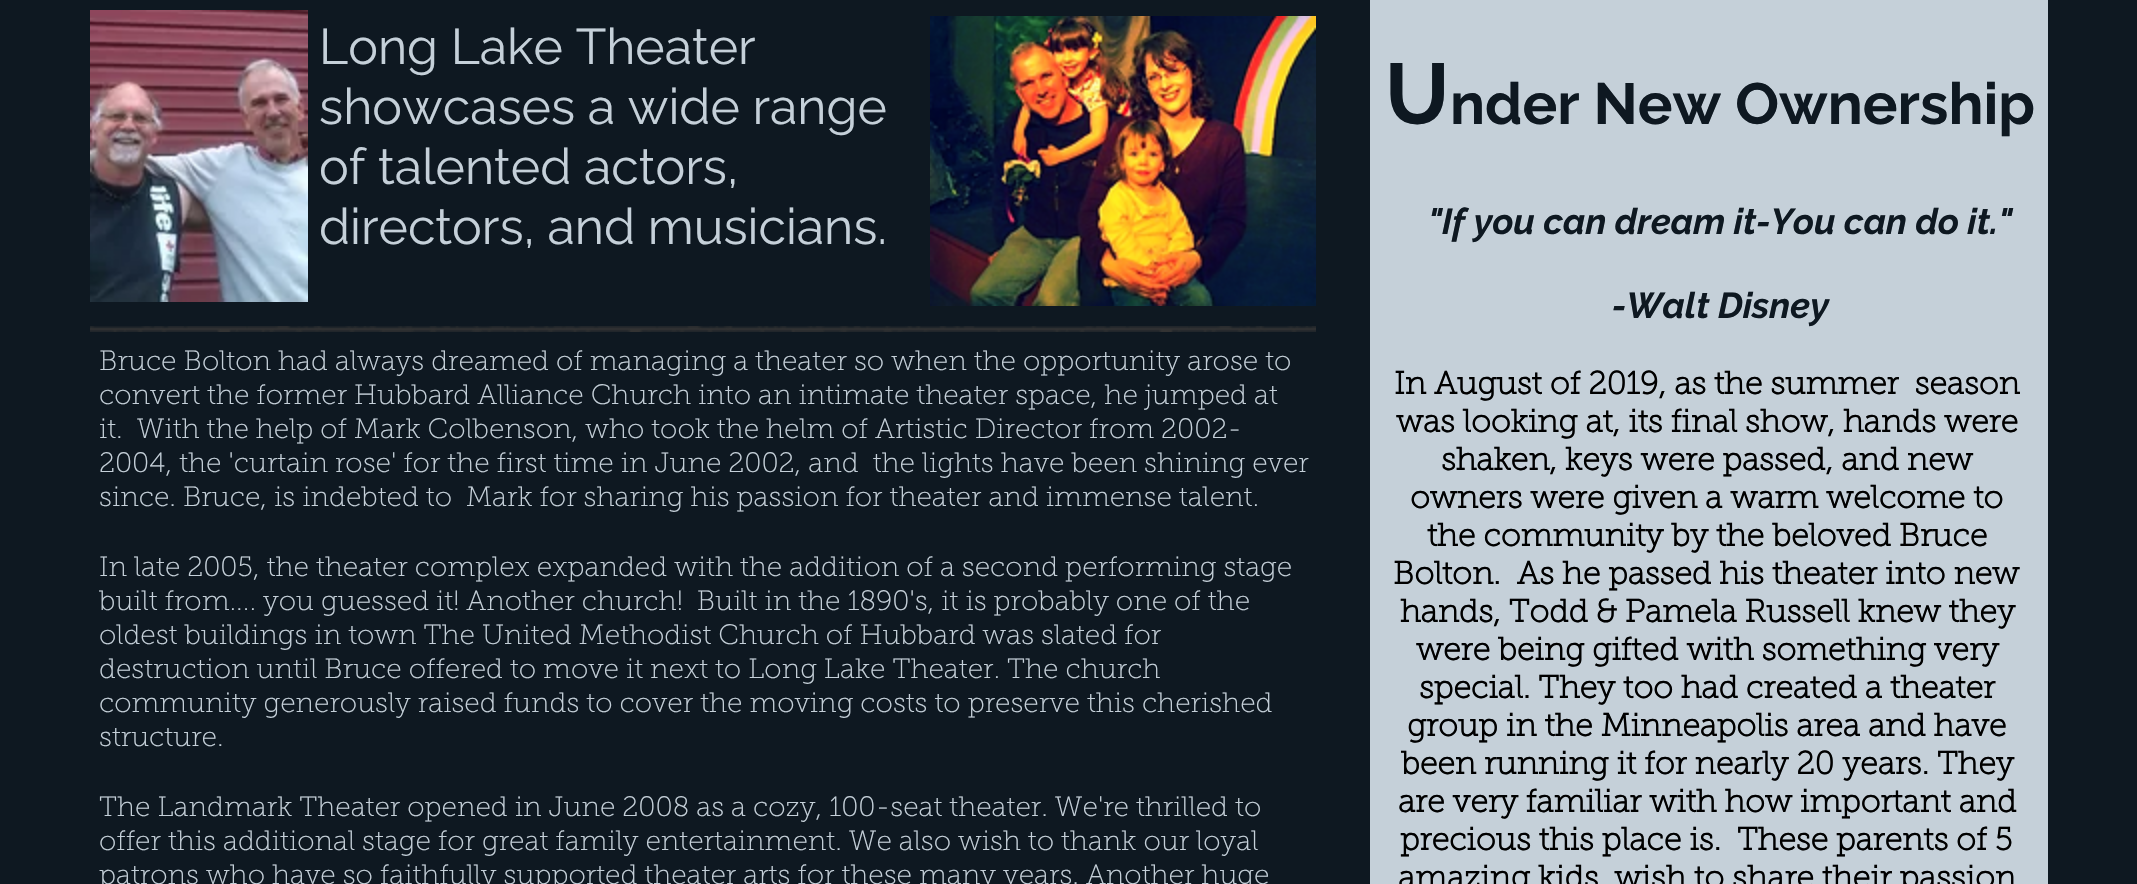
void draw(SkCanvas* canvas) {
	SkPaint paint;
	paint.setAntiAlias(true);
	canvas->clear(0xff0e1821);
	canvas->drawImageRect(SkImages::DeferredFromEncodedData(SkData::MakeFromFileName("img1.png")), SkRect::MakeXYWH(90, 10, 218, 292), SkSamplingOptions());
	SkFont f1(fontMgr->matchFamilyStyle("Raleway", SkFontStyle::Normal()), 50);
	f1.setSubpixel(true);
	paint.setColor(0xffc5d0d9);
	canvas->drawString("Long Lake Theater", 319, 64, f1, paint);
	canvas->drawString("showcases a wide range", 319, 124, f1, paint);
	canvas->drawString("of talented actors,", 319, 184, f1, paint);
	canvas->drawString("directors, and musicians.", 319, 244, f1, paint);
	canvas->drawImageRect(SkImages::DeferredFromEncodedData(SkData::MakeFromFileName("img2.png")), SkRect::MakeXYWH(930, 16, 386, 290), SkSamplingOptions());
	canvas->drawRect(SkRect::MakeXYWH(1370, 0, 678, 884), paint);
	SkFont f2(fontMgr->matchFamilyStyle("Raleway", SkFontStyle::Bold()), 86);
	f2.setSubpixel(true);
	paint.setColor(0xff0e1821);
	canvas->drawString("U", 1385, 124, f2, paint);
	SkFont f3(fontMgr->matchFamilyStyle("Raleway", SkFontStyle::Bold()), 58);
	f3.setSubpixel(true);
	canvas->drawString("nder New Ownership", 1450, 124, f3, paint);
	SkFont f4(fontMgr->matchFamilyStyle("Raleway", SkFontStyle::BoldItalic()), 36);
	f4.setSubpixel(true);
	canvas->drawString("\"If you can dream it-You can do it.\"", 1428, 234, f4, paint);
	canvas->drawString("-Walt Disney", 1612, 318, f4, paint);
	SkFont f5(fontMgr->matchFamilyStyle("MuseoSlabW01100", SkFontStyle::Bold()), 32);
	f5.setSubpixel(true);
	paint.setColor(0xff000000);
	canvas->drawString("In August of 2019, as the summer  season", 1394, 394, f5, paint);
	canvas->drawString("was looking at, its final show, hands were", 1396, 432, f5, paint);
	canvas->drawString("shaken, keys were passed, and new", 1441, 470, f5, paint);
	canvas->drawString("owners were given a warm welcome to", 1410, 508, f5, paint);
	canvas->drawString("the community by the beloved Bruce", 1427, 546, f5, paint);
	canvas->drawString("Bolton.  As he passed his theater into new", 1393, 584, f5, paint);
	canvas->drawString("hands, Todd & Pamela Russell knew they", 1400, 622, f5, paint);
	canvas->drawString("were being gifted with something very", 1416, 660, f5, paint);
	canvas->drawString("special. They too had created a theater", 1419, 698, f5, paint);
	canvas->drawString("group in the Minneapolis area and have", 1407, 736, f5, paint);
	canvas->drawString("been running it for nearly 20 years. They", 1401, 774, f5, paint);
	canvas->drawString("are very familiar with how important and", 1398, 812, f5, paint);
	canvas->drawString("precious this place is.  These parents of 5", 1400, 850, f5, paint);
	canvas->drawString("amazing kids, wish to share their passion", 1398, 888, f5, paint);
	canvas->drawImageRect(SkImages::DeferredFromEncodedData(SkData::MakeFromFileName("img3.png")), SkRect::MakeXYWH(90, 326, 1226, 6), SkSamplingOptions());
	SkFont f6(fontMgr->matchFamilyStyle("MuseoSlabW01100", SkFontStyle(100, SkFontStyle::kNormal_Width, SkFontStyle::kUpright_Slant)), 28);
	f6.setSubpixel(true);
	paint.setColor(0xffc5d0d9);
	canvas->drawString("Bruce Bolton had always dreamed of managing a theater so when the opportunity arose to", 99, 370, f6, paint);
	canvas->drawString("convert the former Hubbard Alliance Church into an intimate theater space, he jumped at", 99, 404, f6, paint);
	canvas->drawString("it.  With the help of Mark Colbenson, who took the helm of Artistic Director from 2002-", 99, 438, f6, paint);
	canvas->drawString("2004, the 'curtain rose' for the first time in June 2002, and  the lights have been shining ever", 99, 472, f6, paint);
	canvas->drawString("since. Bruce, is indebted to  Mark for sharing his passion for theater and immense talent.", 99, 506, f6, paint);
	canvas->drawString("In late 2005, the theater complex expanded with the addition of a second performing stage", 99, 576, f6, paint);
	canvas->drawString("built from.... you guessed it! Another church!  Built in the 1890's, it is probably one of the", 99, 610, f6, paint);
	canvas->drawString("oldest buildings in town The United Methodist Church of Hubbard was slated for", 99, 644, f6, paint);
	canvas->drawString("destruction until Bruce offered to move it next to Long Lake Theater. The church", 99, 678, f6, paint);
	canvas->drawString("community generously raised funds to cover the moving costs to preserve this cherished", 99, 712, f6, paint);
	canvas->drawString("structure.", 99, 746, f6, paint);
	canvas->drawString("The Landmark Theater opened in June 2008 as a cozy, 100-seat theater. We're thrilled to", 99, 816, f6, paint);
	canvas->drawString("offer this additional stage for great family entertainment. We also wish to thank our loyal", 99, 850, f6, paint);
	canvas->drawString("patrons who have so faithfully supported theater arts for these many years. Another huge", 99, 884, f6, paint);
}
